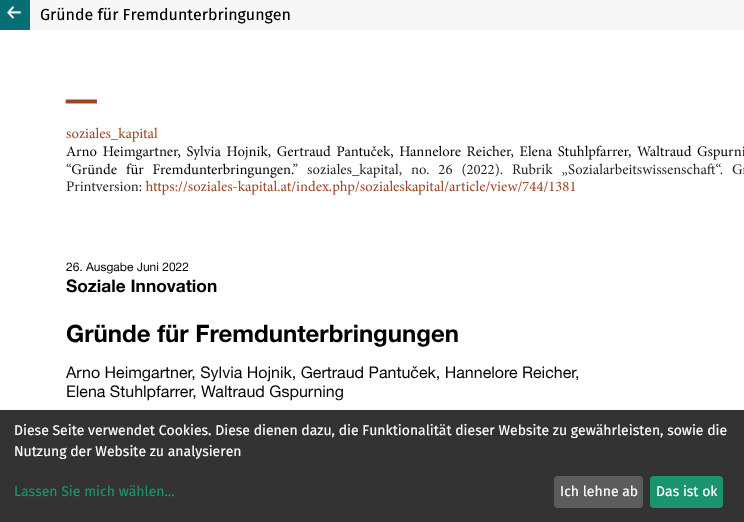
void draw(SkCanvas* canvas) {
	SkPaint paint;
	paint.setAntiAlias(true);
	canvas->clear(0xffffffff);
	paint.setColor(0xfff7f7f7);
	canvas->drawRect(SkRect::MakeXYWH(30, 0, 714, 30), paint);
	paint.setColor(0xff076f73);
	canvas->drawRect(SkRect::MakeXYWH(0, 0, 30, 30), paint);
	SkFont f1(fontMgr->matchFamilyStyle("Fira Sans", SkFontStyle::Normal()), 20);
	f1.setSubpixel(true);
	paint.setColor(0xffffffff);
	canvas->drawString("←", 5, 19, f1, paint);
	SkFont f2(fontMgr->matchFamilyStyle("Fira Sans", SkFontStyle::Normal()), 16);
	f2.setSubpixel(true);
	paint.setColor(0xff000000);
	canvas->drawString("Gründe für Fremdunterbringungen", 40, 20, f2, paint);
	canvas->drawImageRect(SkImages::DeferredFromEncodedData(SkData::MakeFromFileName("img1.png")), SkRect::MakeXYWH(65, 99, 679, 311), SkSamplingOptions());
	paint.setColor(0xff333333);
	canvas->drawRect(SkRect::MakeXYWH(0, 410, 744, 112), paint);
	SkFont f3(fontMgr->matchFamilyStyle("Fira Sans", SkFontStyle::Normal()), 14);
	f3.setSubpixel(true);
	paint.setColor(0xffffffff);
	canvas->drawString("Diese Seite verwendet Cookies. Diese dienen dazu, die Funktionalität dieser Website zu gewährleisten, sowie die", 14, 435, f3, paint);
	canvas->drawString("Nutzung der Website zu analysieren", 14, 456, f3, paint);
	paint.setColor(0xff1a936f);
	canvas->drawString("Lassen Sie mich wählen...", 14, 496, f3, paint);
	paint.setColor(0xff5c5c5c);
	canvas->drawRoundRect(SkRect::MakeXYWH(554, 476, 89, 32), 4, 4, paint);
	paint.setColor(0xffffffff);
	canvas->drawString("Ich lehne ab", 560, 496, f3, paint);
	paint.setColor(0xff1a936f);
	canvas->drawRoundRect(SkRect::MakeXYWH(650, 476, 73, 32), 4, 4, paint);
	paint.setColor(0xffffffff);
	canvas->drawString("Das ist ok", 656, 496, f3, paint);
}
